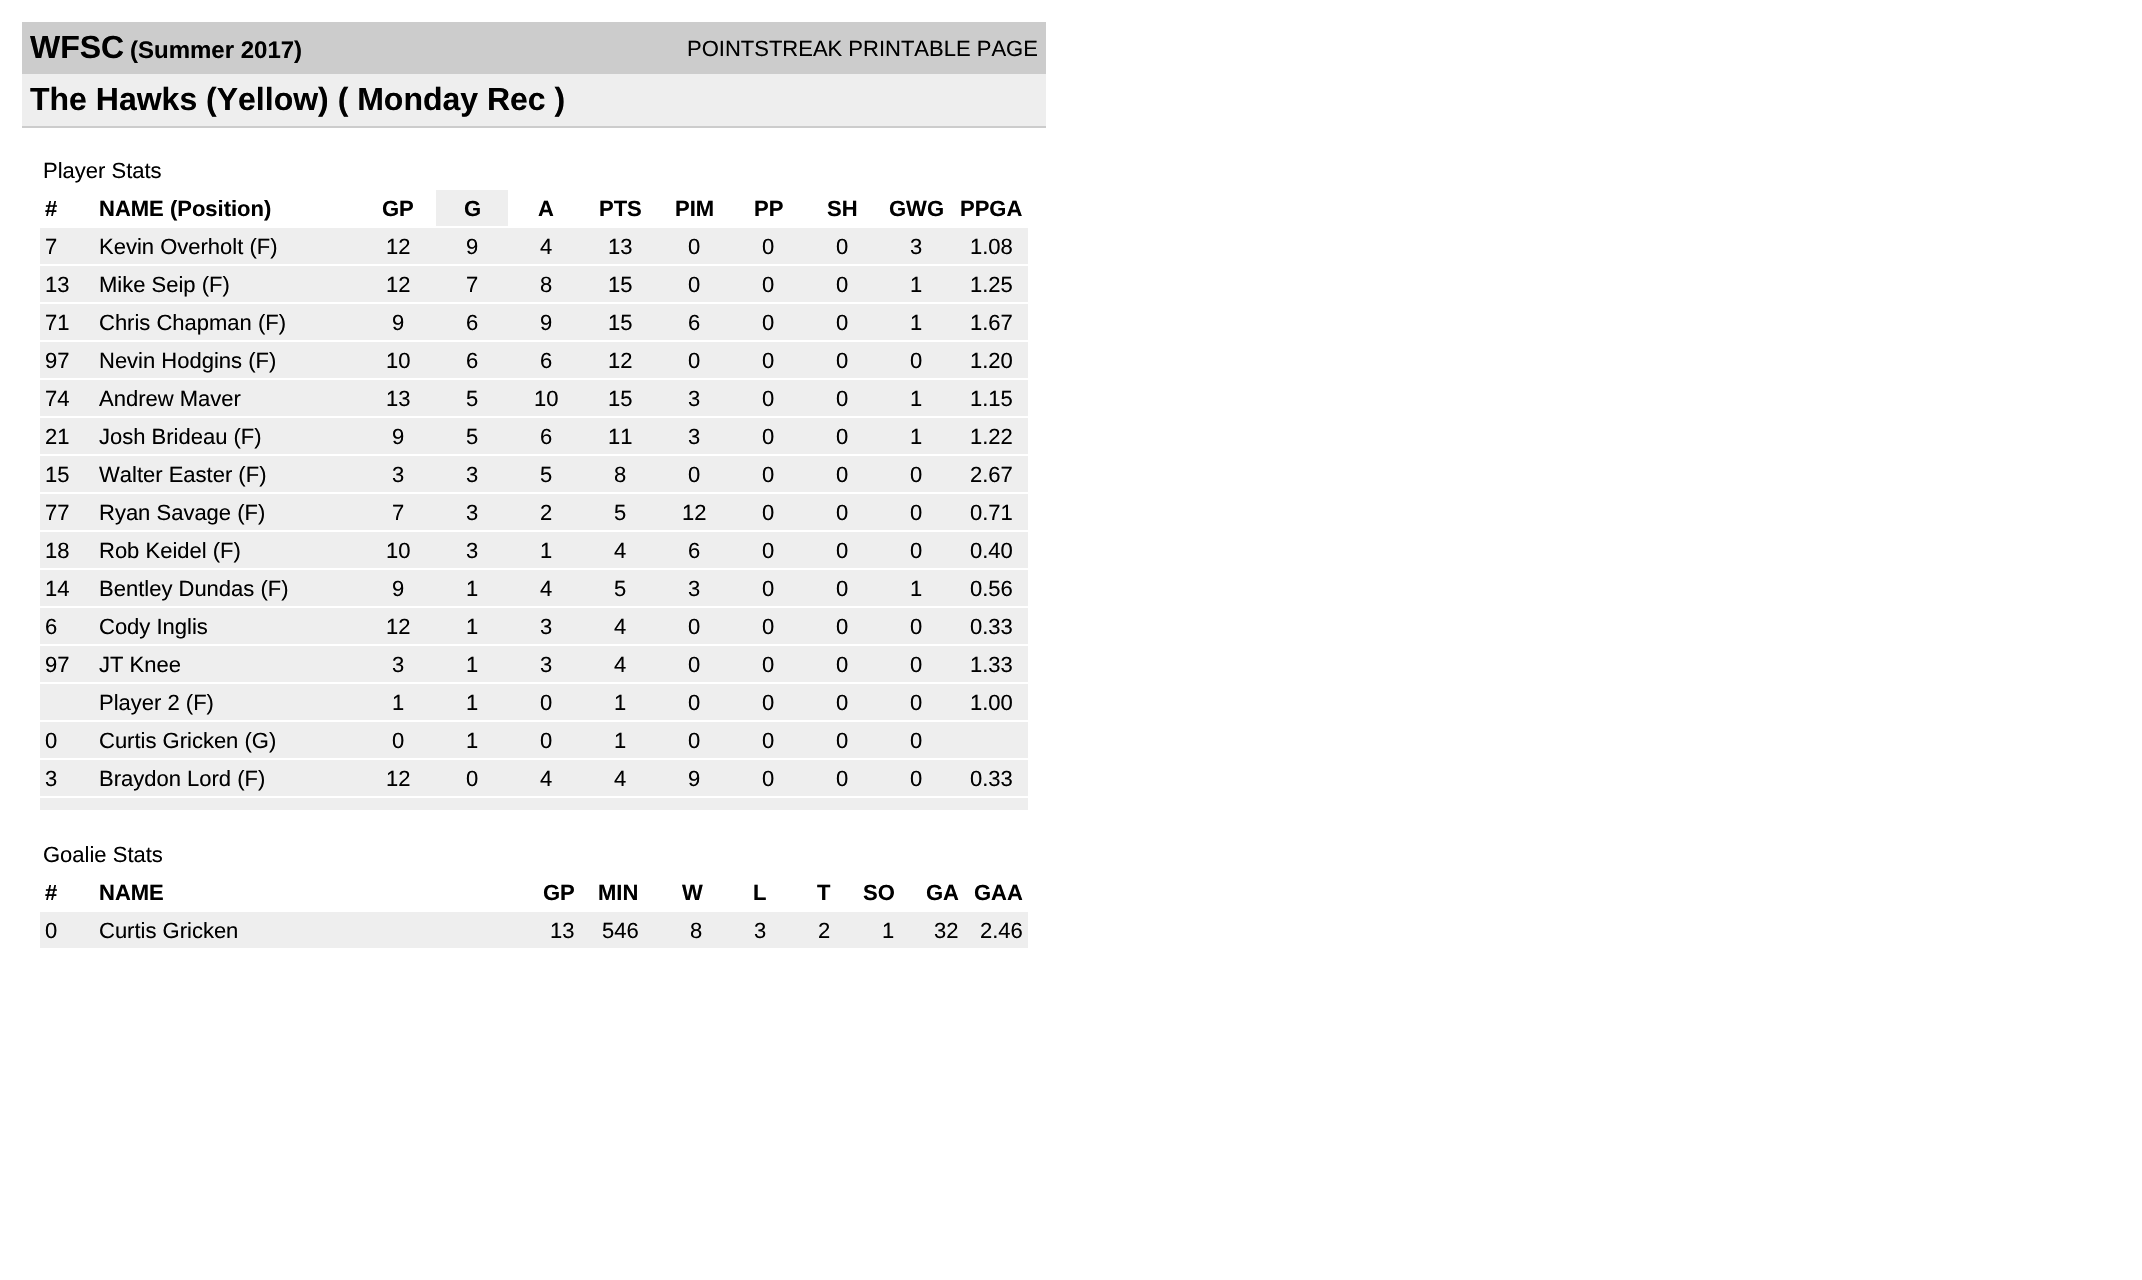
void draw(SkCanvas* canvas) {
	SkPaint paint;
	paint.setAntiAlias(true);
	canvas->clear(0xffffffff);
	paint.setColor(0xffcccccc);
	canvas->drawRect(SkRect::MakeXYWH(22, 22, 1024, 52), paint);
	SkFont f1(fontMgr->matchFamilyStyle("Liberation Sans", SkFontStyle::Bold()), 32);
	f1.setSubpixel(true);
	paint.setColor(0xff000000);
	canvas->drawString("WFSC", 30, 58, f1, paint);
	SkFont f2(fontMgr->matchFamilyStyle("Liberation Sans", SkFontStyle::Bold()), 24);
	f2.setSubpixel(true);
	canvas->drawString("(Summer 2017)", 130, 58, f2, paint);
	SkFont f3(fontMgr->matchFamilyStyle("Liberation Sans", SkFontStyle::Normal()), 22);
	f3.setSubpixel(true);
	canvas->drawString("POINTSTREAK PRINTABLE PAGE", 687, 56, f3, paint);
	paint.setColor(0xffeeeeee);
	canvas->drawRect(SkRect::MakeXYWH(22, 74, 1024, 52), paint);
	paint.setColor(0xff000000);
	canvas->drawString("The Hawks (Yellow) ( Monday Rec )", 30, 110, f1, paint);
	paint.setColor(0xffcccccc);
	canvas->drawRect(SkRect::MakeXYWH(22, 126, 1024, 2), paint);
	paint.setColor(0xff000000);
	canvas->drawString("Player Stats", 43, 178, f3, paint);
	SkFont f4(fontMgr->matchFamilyStyle("Liberation Sans", SkFontStyle::Bold()), 22);
	f4.setSubpixel(true);
	canvas->drawString("#", 45, 216, f4, paint);
	canvas->drawString("NAME (Position)", 99, 216, f4, paint);
	canvas->drawString("GP", 382, 216, f4, paint);
	paint.setColor(0xffeeeeee);
	canvas->drawRect(SkRect::MakeXYWH(436, 190, 72, 36), paint);
	paint.setColor(0xff000000);
	canvas->drawString("G", 464, 216, f4, paint);
	canvas->drawString("A", 538, 216, f4, paint);
	canvas->drawString("PTS", 599, 216, f4, paint);
	canvas->drawString("PIM", 675, 216, f4, paint);
	canvas->drawString("PP", 754, 216, f4, paint);
	canvas->drawString("SH", 827, 216, f4, paint);
	canvas->drawString("GWG", 889, 216, f4, paint);
	canvas->drawString("PPGA", 960, 216, f4, paint);
	paint.setColor(0xffeeeeee);
	canvas->drawRect(SkRect::MakeXYWH(40, 228, 988, 36), paint);
	paint.setColor(0xff000000);
	canvas->drawString("7", 45, 254, f3, paint);
	canvas->drawString("Kevin Overholt (F)", 99, 254, f3, paint);
	canvas->drawString("12", 386, 254, f3, paint);
	canvas->drawString("9", 466, 254, f3, paint);
	canvas->drawString("4", 540, 254, f3, paint);
	canvas->drawString("13", 608, 254, f3, paint);
	canvas->drawString("0", 688, 254, f3, paint);
	canvas->drawString("0", 762, 254, f3, paint);
	canvas->drawString("0", 836, 254, f3, paint);
	canvas->drawString("3", 910, 254, f3, paint);
	canvas->drawString("1.08", 970, 254, f3, paint);
	paint.setColor(0xffeeeeee);
	canvas->drawRect(SkRect::MakeXYWH(40, 266, 988, 36), paint);
	paint.setColor(0xff000000);
	canvas->drawString("13", 45, 292, f3, paint);
	canvas->drawString("Mike Seip (F)", 99, 292, f3, paint);
	canvas->drawString("12", 386, 292, f3, paint);
	canvas->drawString("7", 466, 292, f3, paint);
	canvas->drawString("8", 540, 292, f3, paint);
	canvas->drawString("15", 608, 292, f3, paint);
	canvas->drawString("0", 688, 292, f3, paint);
	canvas->drawString("0", 762, 292, f3, paint);
	canvas->drawString("0", 836, 292, f3, paint);
	canvas->drawString("1", 910, 292, f3, paint);
	canvas->drawString("1.25", 970, 292, f3, paint);
	paint.setColor(0xffeeeeee);
	canvas->drawRect(SkRect::MakeXYWH(40, 304, 988, 36), paint);
	paint.setColor(0xff000000);
	canvas->drawString("71", 45, 330, f3, paint);
	canvas->drawString("Chris Chapman (F)", 99, 330, f3, paint);
	canvas->drawString("9", 392, 330, f3, paint);
	canvas->drawString("6", 466, 330, f3, paint);
	canvas->drawString("9", 540, 330, f3, paint);
	canvas->drawString("15", 608, 330, f3, paint);
	canvas->drawString("6", 688, 330, f3, paint);
	canvas->drawString("0", 762, 330, f3, paint);
	canvas->drawString("0", 836, 330, f3, paint);
	canvas->drawString("1", 910, 330, f3, paint);
	canvas->drawString("1.67", 970, 330, f3, paint);
	paint.setColor(0xffeeeeee);
	canvas->drawRect(SkRect::MakeXYWH(40, 342, 988, 36), paint);
	paint.setColor(0xff000000);
	canvas->drawString("97", 45, 368, f3, paint);
	canvas->drawString("Nevin Hodgins (F)", 99, 368, f3, paint);
	canvas->drawString("10", 386, 368, f3, paint);
	canvas->drawString("6", 466, 368, f3, paint);
	canvas->drawString("6", 540, 368, f3, paint);
	canvas->drawString("12", 608, 368, f3, paint);
	canvas->drawString("0", 688, 368, f3, paint);
	canvas->drawString("0", 762, 368, f3, paint);
	canvas->drawString("0", 836, 368, f3, paint);
	canvas->drawString("0", 910, 368, f3, paint);
	canvas->drawString("1.20", 970, 368, f3, paint);
	paint.setColor(0xffeeeeee);
	canvas->drawRect(SkRect::MakeXYWH(40, 380, 988, 36), paint);
	paint.setColor(0xff000000);
	canvas->drawString("74", 45, 406, f3, paint);
	canvas->drawString("Andrew Maver", 99, 406, f3, paint);
	canvas->drawString("13", 386, 406, f3, paint);
	canvas->drawString("5", 466, 406, f3, paint);
	canvas->drawString("10", 534, 406, f3, paint);
	canvas->drawString("15", 608, 406, f3, paint);
	canvas->drawString("3", 688, 406, f3, paint);
	canvas->drawString("0", 762, 406, f3, paint);
	canvas->drawString("0", 836, 406, f3, paint);
	canvas->drawString("1", 910, 406, f3, paint);
	canvas->drawString("1.15", 970, 406, f3, paint);
	paint.setColor(0xffeeeeee);
	canvas->drawRect(SkRect::MakeXYWH(40, 418, 988, 36), paint);
	paint.setColor(0xff000000);
	canvas->drawString("21", 45, 444, f3, paint);
	canvas->drawString("Josh Brideau (F)", 99, 444, f3, paint);
	canvas->drawString("9", 392, 444, f3, paint);
	canvas->drawString("5", 466, 444, f3, paint);
	canvas->drawString("6", 540, 444, f3, paint);
	canvas->drawString("11", 608, 444, f3, paint);
	canvas->drawString("3", 688, 444, f3, paint);
	canvas->drawString("0", 762, 444, f3, paint);
	canvas->drawString("0", 836, 444, f3, paint);
	canvas->drawString("1", 910, 444, f3, paint);
	canvas->drawString("1.22", 970, 444, f3, paint);
	paint.setColor(0xffeeeeee);
	canvas->drawRect(SkRect::MakeXYWH(40, 456, 988, 36), paint);
	paint.setColor(0xff000000);
	canvas->drawString("15", 45, 482, f3, paint);
	canvas->drawString("Walter Easter (F)", 99, 482, f3, paint);
	canvas->drawString("3", 392, 482, f3, paint);
	canvas->drawString("3", 466, 482, f3, paint);
	canvas->drawString("5", 540, 482, f3, paint);
	canvas->drawString("8", 614, 482, f3, paint);
	canvas->drawString("0", 688, 482, f3, paint);
	canvas->drawString("0", 762, 482, f3, paint);
	canvas->drawString("0", 836, 482, f3, paint);
	canvas->drawString("0", 910, 482, f3, paint);
	canvas->drawString("2.67", 970, 482, f3, paint);
	paint.setColor(0xffeeeeee);
	canvas->drawRect(SkRect::MakeXYWH(40, 494, 988, 36), paint);
	paint.setColor(0xff000000);
	canvas->drawString("77", 45, 520, f3, paint);
	canvas->drawString("Ryan Savage (F)", 99, 520, f3, paint);
	canvas->drawString("7", 392, 520, f3, paint);
	canvas->drawString("3", 466, 520, f3, paint);
	canvas->drawString("2", 540, 520, f3, paint);
	canvas->drawString("5", 614, 520, f3, paint);
	canvas->drawString("12", 682, 520, f3, paint);
	canvas->drawString("0", 762, 520, f3, paint);
	canvas->drawString("0", 836, 520, f3, paint);
	canvas->drawString("0", 910, 520, f3, paint);
	canvas->drawString("0.71", 970, 520, f3, paint);
	paint.setColor(0xffeeeeee);
	canvas->drawRect(SkRect::MakeXYWH(40, 532, 988, 36), paint);
	paint.setColor(0xff000000);
	canvas->drawString("18", 45, 558, f3, paint);
	canvas->drawString("Rob Keidel (F)", 99, 558, f3, paint);
	canvas->drawString("10", 386, 558, f3, paint);
	canvas->drawString("3", 466, 558, f3, paint);
	canvas->drawString("1", 540, 558, f3, paint);
	canvas->drawString("4", 614, 558, f3, paint);
	canvas->drawString("6", 688, 558, f3, paint);
	canvas->drawString("0", 762, 558, f3, paint);
	canvas->drawString("0", 836, 558, f3, paint);
	canvas->drawString("0", 910, 558, f3, paint);
	canvas->drawString("0.40", 970, 558, f3, paint);
	paint.setColor(0xffeeeeee);
	canvas->drawRect(SkRect::MakeXYWH(40, 570, 988, 36), paint);
	paint.setColor(0xff000000);
	canvas->drawString("14", 45, 596, f3, paint);
	canvas->drawString("Bentley Dundas (F)", 99, 596, f3, paint);
	canvas->drawString("9", 392, 596, f3, paint);
	canvas->drawString("1", 466, 596, f3, paint);
	canvas->drawString("4", 540, 596, f3, paint);
	canvas->drawString("5", 614, 596, f3, paint);
	canvas->drawString("3", 688, 596, f3, paint);
	canvas->drawString("0", 762, 596, f3, paint);
	canvas->drawString("0", 836, 596, f3, paint);
	canvas->drawString("1", 910, 596, f3, paint);
	canvas->drawString("0.56", 970, 596, f3, paint);
	paint.setColor(0xffeeeeee);
	canvas->drawRect(SkRect::MakeXYWH(40, 608, 988, 36), paint);
	paint.setColor(0xff000000);
	canvas->drawString("6", 45, 634, f3, paint);
	canvas->drawString("Cody Inglis", 99, 634, f3, paint);
	canvas->drawString("12", 386, 634, f3, paint);
	canvas->drawString("1", 466, 634, f3, paint);
	canvas->drawString("3", 540, 634, f3, paint);
	canvas->drawString("4", 614, 634, f3, paint);
	canvas->drawString("0", 688, 634, f3, paint);
	canvas->drawString("0", 762, 634, f3, paint);
	canvas->drawString("0", 836, 634, f3, paint);
	canvas->drawString("0", 910, 634, f3, paint);
	canvas->drawString("0.33", 970, 634, f3, paint);
	paint.setColor(0xffeeeeee);
	canvas->drawRect(SkRect::MakeXYWH(40, 646, 988, 36), paint);
	paint.setColor(0xff000000);
	canvas->drawString("97", 45, 672, f3, paint);
	canvas->drawString("JT Knee", 99, 672, f3, paint);
	canvas->drawString("3", 392, 672, f3, paint);
	canvas->drawString("1", 466, 672, f3, paint);
	canvas->drawString("3", 540, 672, f3, paint);
	canvas->drawString("4", 614, 672, f3, paint);
	canvas->drawString("0", 688, 672, f3, paint);
	canvas->drawString("0", 762, 672, f3, paint);
	canvas->drawString("0", 836, 672, f3, paint);
	canvas->drawString("0", 910, 672, f3, paint);
	canvas->drawString("1.33", 970, 672, f3, paint);
	paint.setColor(0xffeeeeee);
	canvas->drawRect(SkRect::MakeXYWH(40, 684, 988, 36), paint);
	paint.setColor(0xff000000);
	canvas->drawString("Player 2 (F)", 99, 710, f3, paint);
	canvas->drawString("1", 392, 710, f3, paint);
	canvas->drawString("1", 466, 710, f3, paint);
	canvas->drawString("0", 540, 710, f3, paint);
	canvas->drawString("1", 614, 710, f3, paint);
	canvas->drawString("0", 688, 710, f3, paint);
	canvas->drawString("0", 762, 710, f3, paint);
	canvas->drawString("0", 836, 710, f3, paint);
	canvas->drawString("0", 910, 710, f3, paint);
	canvas->drawString("1.00", 970, 710, f3, paint);
	paint.setColor(0xffeeeeee);
	canvas->drawRect(SkRect::MakeXYWH(40, 722, 988, 36), paint);
	paint.setColor(0xff000000);
	canvas->drawString("0", 45, 748, f3, paint);
	canvas->drawString("Curtis Gricken (G)", 99, 748, f3, paint);
	canvas->drawString("0", 392, 748, f3, paint);
	canvas->drawString("1", 466, 748, f3, paint);
	canvas->drawString("0", 540, 748, f3, paint);
	canvas->drawString("1", 614, 748, f3, paint);
	canvas->drawString("0", 688, 748, f3, paint);
	canvas->drawString("0", 762, 748, f3, paint);
	canvas->drawString("0", 836, 748, f3, paint);
	canvas->drawString("0", 910, 748, f3, paint);
	paint.setColor(0xffeeeeee);
	canvas->drawRect(SkRect::MakeXYWH(40, 760, 988, 36), paint);
	paint.setColor(0xff000000);
	canvas->drawString("3", 45, 786, f3, paint);
	canvas->drawString("Braydon Lord (F)", 99, 786, f3, paint);
	canvas->drawString("12", 386, 786, f3, paint);
	canvas->drawString("0", 466, 786, f3, paint);
	canvas->drawString("4", 540, 786, f3, paint);
	canvas->drawString("4", 614, 786, f3, paint);
	canvas->drawString("9", 688, 786, f3, paint);
	canvas->drawString("0", 762, 786, f3, paint);
	canvas->drawString("0", 836, 786, f3, paint);
	canvas->drawString("0", 910, 786, f3, paint);
	canvas->drawString("0.33", 970, 786, f3, paint);
	paint.setColor(0xffeeeeee);
	canvas->drawRect(SkRect::MakeXYWH(40, 798, 988, 12), paint);
	paint.setColor(0xff000000);
	canvas->drawString("Goalie Stats", 43, 862, f3, paint);
	canvas->drawString("#", 45, 900, f4, paint);
	canvas->drawString("NAME", 99, 900, f4, paint);
	canvas->drawString("GP", 543, 900, f4, paint);
	canvas->drawString("MIN", 598, 900, f4, paint);
	canvas->drawString("W", 682, 900, f4, paint);
	canvas->drawString("L", 753, 900, f4, paint);
	canvas->drawString("T", 817, 900, f4, paint);
	canvas->drawString("SO", 863, 900, f4, paint);
	canvas->drawString("GA", 926, 900, f4, paint);
	canvas->drawString("GAA", 974, 900, f4, paint);
	paint.setColor(0xffeeeeee);
	canvas->drawRect(SkRect::MakeXYWH(40, 912, 988, 36), paint);
	paint.setColor(0xff000000);
	canvas->drawString("0", 45, 938, f3, paint);
	canvas->drawString("Curtis Gricken", 99, 938, f3, paint);
	canvas->drawString("13", 550, 938, f3, paint);
	canvas->drawString("546", 602, 938, f3, paint);
	canvas->drawString("8", 690, 938, f3, paint);
	canvas->drawString("3", 754, 938, f3, paint);
	canvas->drawString("2", 818, 938, f3, paint);
	canvas->drawString("1", 882, 938, f3, paint);
	canvas->drawString("32", 934, 938, f3, paint);
	canvas->drawString("2.46", 980, 938, f3, paint);
}
